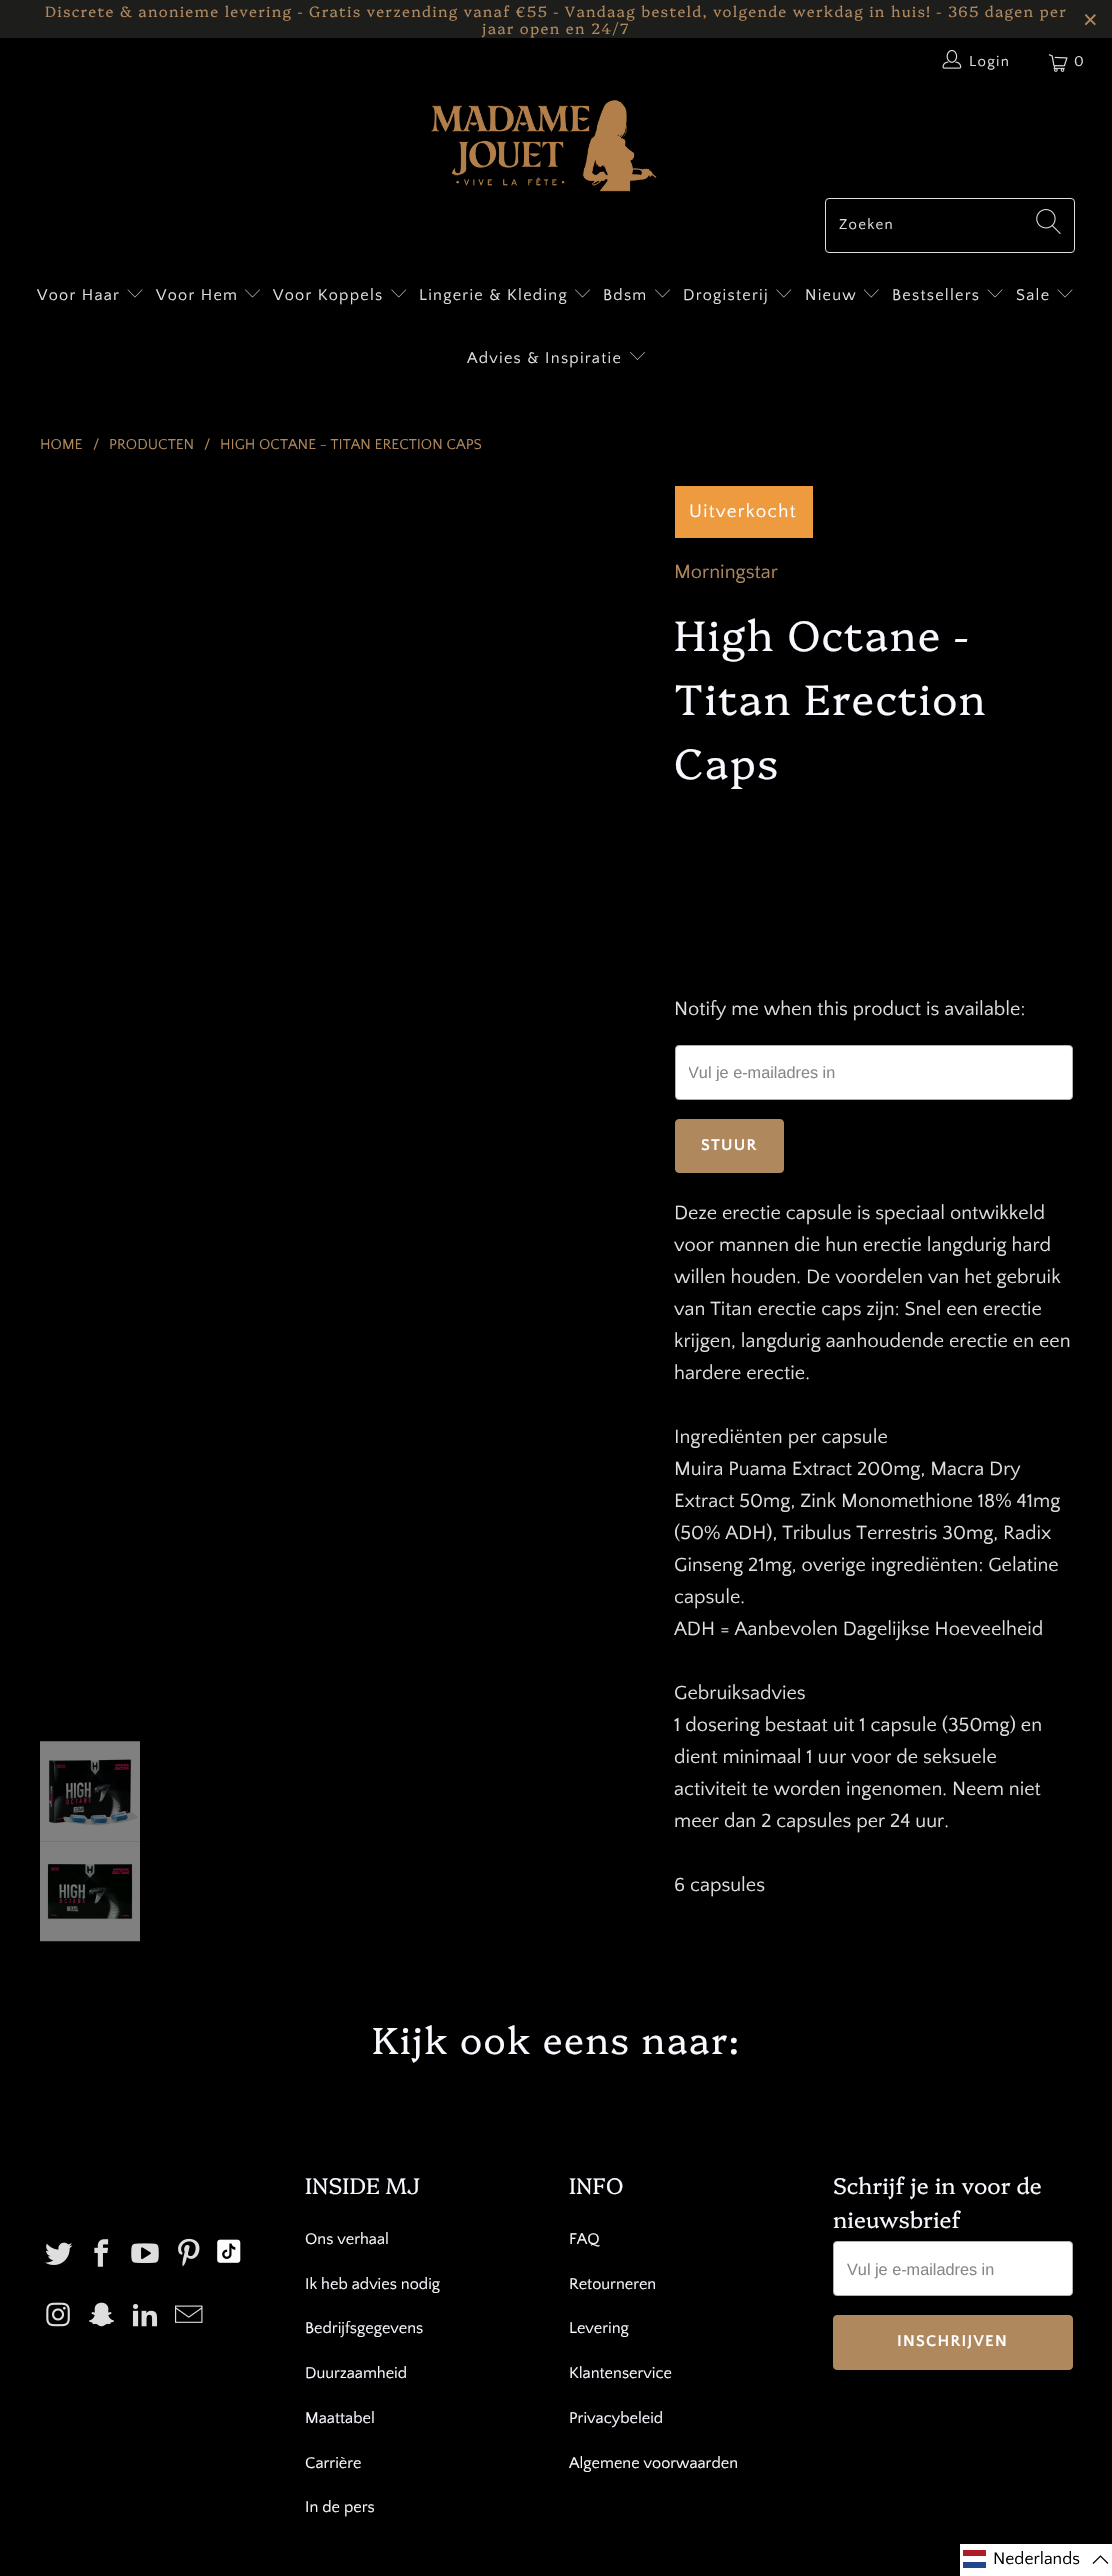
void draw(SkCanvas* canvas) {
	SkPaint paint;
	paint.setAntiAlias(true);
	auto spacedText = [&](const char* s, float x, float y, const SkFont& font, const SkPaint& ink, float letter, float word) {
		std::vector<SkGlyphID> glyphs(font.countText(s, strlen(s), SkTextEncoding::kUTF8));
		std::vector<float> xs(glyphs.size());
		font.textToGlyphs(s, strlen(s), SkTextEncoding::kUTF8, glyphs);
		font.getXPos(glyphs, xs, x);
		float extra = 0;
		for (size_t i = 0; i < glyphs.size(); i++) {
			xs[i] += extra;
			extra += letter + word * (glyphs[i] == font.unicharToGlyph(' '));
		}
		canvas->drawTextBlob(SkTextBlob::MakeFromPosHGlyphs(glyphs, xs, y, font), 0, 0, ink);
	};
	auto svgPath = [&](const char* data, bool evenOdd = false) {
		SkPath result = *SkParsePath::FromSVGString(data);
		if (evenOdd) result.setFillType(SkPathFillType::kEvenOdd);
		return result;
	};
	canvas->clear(0xff000000);
	paint.setColor(0xff1d1d1b);
	canvas->drawRect(SkRect::MakeXYWH(0, 0, 1112, 38), paint);
	SkFont f1(fontMgr->matchFamilyStyle("Platypi", SkFontStyle(300, SkFontStyle::kNormal_Width, SkFontStyle::kUpright_Slant)), 15);
	f1.setSubpixel(true);
	paint.setColor(0xffb0885e);
	spacedText("Discrete & anonieme levering - Gratis verzending vanaf €55 - Vandaag besteld, volgende werkdag in huis! - 365 dagen per", 45, 17, f1, paint, 1.25, 0);
	spacedText("jaar open en 24/7", 482, 34, f1, paint, 1.25, 0);
	SkFont f2(fontMgr->matchFamilyStyle("Liberation Sans", SkFontStyle::Normal()), 25);
	f2.setSubpixel(true);
	spacedText("×", 1083, 28, f2, paint, 1.25, 0);
	canvas->drawImageRect(SkImages::DeferredFromEncodedData(SkData::MakeFromFileName("img1.png")), SkRect::MakeXYWH(942, 49, 20, 20), SkSamplingOptions());
	SkFont f3(fontMgr->matchFamilyStyle("Quattrocento Sans", SkFontStyle::Normal()), 15);
	f3.setSubpixel(true);
	paint.setColor(0xffdedede);
	spacedText("Login", 969, 66, f3, paint, 1.25, 0);
	canvas->drawImageRect(SkImages::DeferredFromEncodedData(SkData::MakeFromFileName("img2.png")), SkRect::MakeXYWH(1048, 54, 20, 18), SkSamplingOptions());
	spacedText("0", 1074, 66, f3, paint, 1.25, 0);
	canvas->drawImageRect(SkImages::DeferredFromEncodedData(SkData::MakeFromFileName("img3.png")), SkRect::MakeXYWH(431, 100, 226, 92), SkSamplingOptions());
	paint.setStroke(true);
	paint.setStrokeWidth(1);
	canvas->drawRoundRect(SkRect::MakeXYWH(825.5, 198.5, 249, 54), 3.5, 3.5, paint);
	paint.setStroke(false);
	spacedText("Zoeken", 839, 229, f3, paint, 1.25, 0);
	canvas->drawImageRect(SkImages::DeferredFromEncodedData(SkData::MakeFromFileName("img4.png")), SkRect::MakeXYWH(1036, 209, 25, 25), SkSamplingOptions());
	SkFont f4(fontMgr->matchFamilyStyle("Quattrocento Sans", SkFontStyle::Normal()), 16.25);
	f4.setSubpixel(true);
	spacedText("Voor Haar", 37, 300, f4, paint, 1.25, 0);
	canvas->drawImageRect(SkImages::DeferredFromEncodedData(SkData::MakeFromFileName("img5.png")), SkRect::MakeXYWH(127, 289, 16, 9), SkSamplingOptions());
	spacedText("Voor Hem", 156, 300, f4, paint, 1.25, 0);
	canvas->drawImageRect(SkImages::DeferredFromEncodedData(SkData::MakeFromFileName("img6.png")), SkRect::MakeXYWH(245, 289, 15, 9), SkSamplingOptions());
	spacedText("Voor Koppels", 273, 300, f4, paint, 1.25, 0);
	canvas->drawImageRect(SkImages::DeferredFromEncodedData(SkData::MakeFromFileName("img7.png")), SkRect::MakeXYWH(391, 289, 16, 9), SkSamplingOptions());
	spacedText("Lingerie & Kleding", 419, 300, f4, paint, 1.25, 0);
	canvas->drawImageRect(SkImages::DeferredFromEncodedData(SkData::MakeFromFileName("img6.png")), SkRect::MakeXYWH(575, 289, 15, 9), SkSamplingOptions());
	spacedText("Bdsm", 603, 300, f4, paint, 1.25, 0);
	canvas->drawImageRect(SkImages::DeferredFromEncodedData(SkData::MakeFromFileName("img6.png")), SkRect::MakeXYWH(655, 289, 15, 9), SkSamplingOptions());
	spacedText("Drogisterij", 683, 300, f4, paint, 1.25, 0);
	canvas->drawImageRect(SkImages::DeferredFromEncodedData(SkData::MakeFromFileName("img7.png")), SkRect::MakeXYWH(776, 289, 16, 9), SkSamplingOptions());
	spacedText("Nieuw", 805, 300, f4, paint, 1.25, 0);
	canvas->drawImageRect(SkImages::DeferredFromEncodedData(SkData::MakeFromFileName("img8.png")), SkRect::MakeXYWH(863, 289, 16, 9), SkSamplingOptions());
	spacedText("Bestsellers", 892, 300, f4, paint, 1.25, 0);
	canvas->drawImageRect(SkImages::DeferredFromEncodedData(SkData::MakeFromFileName("img5.png")), SkRect::MakeXYWH(987, 289, 16, 9), SkSamplingOptions());
	spacedText("Sale", 1016, 300, f4, paint, 1.25, 0);
	canvas->drawImageRect(SkImages::DeferredFromEncodedData(SkData::MakeFromFileName("img5.png")), SkRect::MakeXYWH(1057, 289, 16, 9), SkSamplingOptions());
	spacedText("Advies & Inspiratie", 467, 363, f4, paint, 1.25, 0);
	canvas->drawImageRect(SkImages::DeferredFromEncodedData(SkData::MakeFromFileName("img9.png")), SkRect::MakeXYWH(630, 352, 15, 8), SkSamplingOptions());
	paint.setColor(0xffb0885e);
	canvas->drawString("HOME", 40, 449, f3, paint);
	canvas->drawString("/", 93, 449, f3, paint);
	canvas->drawString("PRODUCTEN", 109, 449, f3, paint);
	canvas->drawString("/", 204, 449, f3, paint);
	canvas->drawString("HIGH OCTANE - TITAN ERECTION CAPS", 220, 449, f3, paint);
	canvas->drawImageRect(SkImages::DeferredFromEncodedData(SkData::MakeFromFileName("img10.png")), SkRect::MakeXYWH(40, 1741, 100, 101), SkSamplingOptions());
	canvas->drawImageRect(SkImages::DeferredFromEncodedData(SkData::MakeFromFileName("img11.png")), SkRect::MakeXYWH(40, 1841, 100, 101), SkSamplingOptions());
	paint.setColor(0xffee9b40);
	canvas->drawRect(SkRect::MakeXYWH(675, 486, 138, 52), paint);
	SkFont f5(fontMgr->matchFamilyStyle("Quattrocento Sans", SkFontStyle::Normal()), 18.75);
	f5.setSubpixel(true);
	paint.setColor(0xffffffff);
	spacedText("Uitverkocht", 689, 517, f5, paint, 1.25, 0);
	SkFont f6(fontMgr->matchFamilyStyle("Quattrocento Sans", SkFontStyle::Normal()), 20);
	f6.setSubpixel(true);
	paint.setColor(0xffb0885e);
	canvas->drawString("Morningstar", 674, 578, f6, paint);
	SkFont f7(fontMgr->matchFamilyStyle("Platypi", SkFontStyle(300, SkFontStyle::kNormal_Width, SkFontStyle::kUpright_Slant)), 42.5);
	f7.setSubpixel(true);
	paint.setColor(0xfff8f8ff);
	spacedText("High Octane -", 674, 651, f7, paint, 1.25, 0);
	spacedText("Titan Erection", 674, 715, f7, paint, 1.25, 0);
	spacedText("Caps", 674, 779, f7, paint, 1.25, 0);
	paint.setColor(0xffdedede);
	canvas->drawString("Notify me when this product is available:", 674, 1015, f6, paint);
	paint.setColor(0xffffffff);
	canvas->drawRoundRect(SkRect::MakeXYWH(675.5, 1045.5, 397, 54), 3.5, 3.5, paint);
	paint.setStroke(true);
	paint.setColor(0xffb0b0b0);
	canvas->drawRoundRect(SkRect::MakeXYWH(675.5, 1045.5, 397, 54), 3.5, 3.5, paint);
	canvas->save();
	canvas->clipRect(SkRect::MakeXYWH(689, 1063, 370, 18));
	SkFont f8(fontMgr->matchFamilyStyle("Liberation Sans", SkFontStyle::Normal()), 16.25);
	f8.setSubpixel(true);
	paint.setStroke(false);
	paint.setColor(0xff888888);
	canvas->drawString("Vul je e-mailadres in", 688, 1078, f8, paint);
	canvas->restore();
	paint.setColor(0xffb0885e);
	canvas->drawRoundRect(SkRect::MakeXYWH(675.5, 1119.5, 108, 53), 3.5, 3.5, paint);
	paint.setStroke(true);
	canvas->drawRoundRect(SkRect::MakeXYWH(675.5, 1119.5, 108, 53), 3.5, 3.5, paint);
	SkFont f9(fontMgr->matchFamilyStyle("Quattrocento Sans", SkFontStyle::Bold()), 16.25);
	f9.setSubpixel(true);
	paint.setStroke(false);
	paint.setColor(0xffffffff);
	spacedText("STUUR", 701, 1150, f9, paint, 1.25, 0);
	paint.setColor(0xffdedede);
	canvas->drawString("Deze erectie capsule is speciaal ontwikkeld", 674, 1219, f6, paint);
	canvas->drawString("voor mannen die hun erectie langdurig hard", 674, 1251, f6, paint);
	canvas->drawString("willen houden. De voordelen van het gebruik", 674, 1283, f6, paint);
	canvas->drawString("van Titan erectie caps zijn: Snel een erectie", 674, 1315, f6, paint);
	canvas->drawString("krijgen, langdurig aanhoudende erectie en een", 674, 1347, f6, paint);
	canvas->drawString("hardere erectie.", 674, 1379, f6, paint);
	canvas->drawString("Ingrediënten per capsule", 674, 1443, f6, paint);
	canvas->drawString("Muira Puama Extract 200mg, Macra Dry", 674, 1475, f6, paint);
	canvas->drawString("Extract 50mg, Zink Monomethione 18% 41mg", 674, 1507, f6, paint);
	canvas->drawString("(50% ADH), Tribulus Terrestris 30mg, Radix", 674, 1539, f6, paint);
	canvas->drawString("Ginseng 21mg, overige ingrediënten: Gelatine", 674, 1571, f6, paint);
	canvas->drawString("capsule.", 674, 1603, f6, paint);
	canvas->drawString("ADH = Aanbevolen Dagelijkse Hoeveelheid", 674, 1635, f6, paint);
	canvas->drawString("Gebruiksadvies", 674, 1699, f6, paint);
	canvas->drawString("1 dosering bestaat uit 1 capsule (350mg) en", 674, 1731, f6, paint);
	canvas->drawString("dient minimaal 1 uur voor de seksuele", 674, 1763, f6, paint);
	canvas->drawString("activiteit te worden ingenomen. Neem niet", 674, 1795, f6, paint);
	canvas->drawString("meer dan 2 capsules per 24 uur.", 674, 1827, f6, paint);
	canvas->drawString("6 capsules", 674, 1891, f6, paint);
	SkFont f10(fontMgr->matchFamilyStyle("Platypi", SkFontStyle(300, SkFontStyle::kNormal_Width, SkFontStyle::kUpright_Slant)), 37.5);
	f10.setSubpixel(true);
	paint.setColor(0xfff8f8ff);
	spacedText("Kijk ook eens naar:", 372, 2054, f10, paint, 1.25, 0);
	canvas->drawImageRect(SkImages::DeferredFromEncodedData(SkData::MakeFromFileName("img12.png")), SkRect::MakeXYWH(45, 2242, 28, 23), SkSamplingOptions());
	canvas->drawImageRect(SkImages::DeferredFromEncodedData(SkData::MakeFromFileName("img13.png")), SkRect::MakeXYWH(94, 2239, 15, 28), SkSamplingOptions());
	canvas->drawImageRect(SkImages::DeferredFromEncodedData(SkData::MakeFromFileName("img14.png")), SkRect::MakeXYWH(131, 2243, 28, 21), SkSamplingOptions());
	canvas->drawImageRect(SkImages::DeferredFromEncodedData(SkData::MakeFromFileName("img15.png")), SkRect::MakeXYWH(178, 2238, 22, 29), SkSamplingOptions());
	canvas->drawImageRect(SkImages::DeferredFromEncodedData(SkData::MakeFromFileName("img16.png")), SkRect::MakeXYWH(217, 2239, 24, 24), SkSamplingOptions());
	canvas->drawImageRect(SkImages::DeferredFromEncodedData(SkData::MakeFromFileName("img17.png")), SkRect::MakeXYWH(46, 2302, 24, 25), SkSamplingOptions());
	canvas->drawImageRect(SkImages::DeferredFromEncodedData(SkData::MakeFromFileName("img18.png")), SkRect::MakeXYWH(89, 2302, 25, 25), SkSamplingOptions());
	canvas->drawImageRect(SkImages::DeferredFromEncodedData(SkData::MakeFromFileName("img19.png")), SkRect::MakeXYWH(132, 2303, 26, 24), SkSamplingOptions());
	canvas->drawImageRect(SkImages::DeferredFromEncodedData(SkData::MakeFromFileName("img20.png")), SkRect::MakeXYWH(175, 2305, 28, 18), SkSamplingOptions());
	SkFont f11(fontMgr->matchFamilyStyle("Platypi", SkFontStyle(300, SkFontStyle::kNormal_Width, SkFontStyle::kUpright_Slant)), 22.5);
	f11.setSubpixel(true);
	canvas->drawString("INSIDE MJ", 305, 2194, f11, paint);
	canvas->drawString("Ons verhaal", 305, 2244, f4, paint);
	canvas->drawString("Ik heb advies nodig", 305, 2289, f4, paint);
	canvas->drawString("Bedrijfsgegevens", 305, 2333, f4, paint);
	canvas->drawString("Duurzaamheid", 305, 2378, f4, paint);
	canvas->drawString("Maattabel", 305, 2423, f4, paint);
	canvas->drawString("Carrière", 305, 2468, f4, paint);
	canvas->drawString("In de pers", 305, 2512, f4, paint);
	canvas->drawString("INFO", 569, 2194, f11, paint);
	canvas->drawString("FAQ", 569, 2244, f4, paint);
	canvas->drawString("Retourneren", 569, 2289, f4, paint);
	canvas->drawString("Levering", 569, 2333, f4, paint);
	canvas->drawString("Klantenservice", 569, 2378, f4, paint);
	canvas->drawString("Privacybeleid", 569, 2423, f4, paint);
	canvas->drawString("Algemene voorwaarden", 569, 2468, f4, paint);
	canvas->drawString("Schrijf je in voor de", 833, 2194, f11, paint);
	canvas->drawString("nieuwsbrief", 833, 2228, f11, paint);
	paint.setColor(0xffffffff);
	canvas->drawRoundRect(SkRect::MakeXYWH(833.5, 2241.5, 239, 54), 3.5, 3.5, paint);
	paint.setStroke(true);
	paint.setColor(0xffb0b0b0);
	canvas->drawRoundRect(SkRect::MakeXYWH(833.5, 2241.5, 239, 54), 3.5, 3.5, paint);
	paint.setStroke(false);
	paint.setColor(0xff888888);
	canvas->drawString("Vul je e-mailadres in", 847, 2275, f8, paint);
	paint.setColor(0xffb0885e);
	canvas->drawRoundRect(SkRect::MakeXYWH(833.5, 2315.5, 239, 54), 3.5, 3.5, paint);
	paint.setStroke(true);
	canvas->drawRoundRect(SkRect::MakeXYWH(833.5, 2315.5, 239, 54), 3.5, 3.5, paint);
	paint.setStroke(false);
	paint.setColor(0xffffffff);
	spacedText("INSCHRIJVEN", 897, 2346, f9, paint, 1.25, 0);
	canvas->drawRect(SkRect::MakeXYWH(960, 2544, 152, 32), paint);
	paint.setColor(0xff21468b);
	canvas->drawRect(SkRect::MakeXYWH(963, 2562, 23, 6), paint);
	paint.setColor(0xffae1c28);
	canvas->drawRect(SkRect::MakeXYWH(963, 2550, 23, 6), paint);
	SkFont f12(fontMgr->matchFamilyStyle("Quattrocento Sans", SkFontStyle::Normal()), 17.5);
	f12.setSubpixel(true);
	paint.setColor(0xff000000);
	canvas->drawString("Nederlands", 993, 2564, f12, paint);
	paint.setStroke(true);
	paint.setStrokeWidth(1.2);
	canvas->drawPath(svgPath("M1108 2563.5L1100.5 2556L1093 2563.5"), paint);
}
